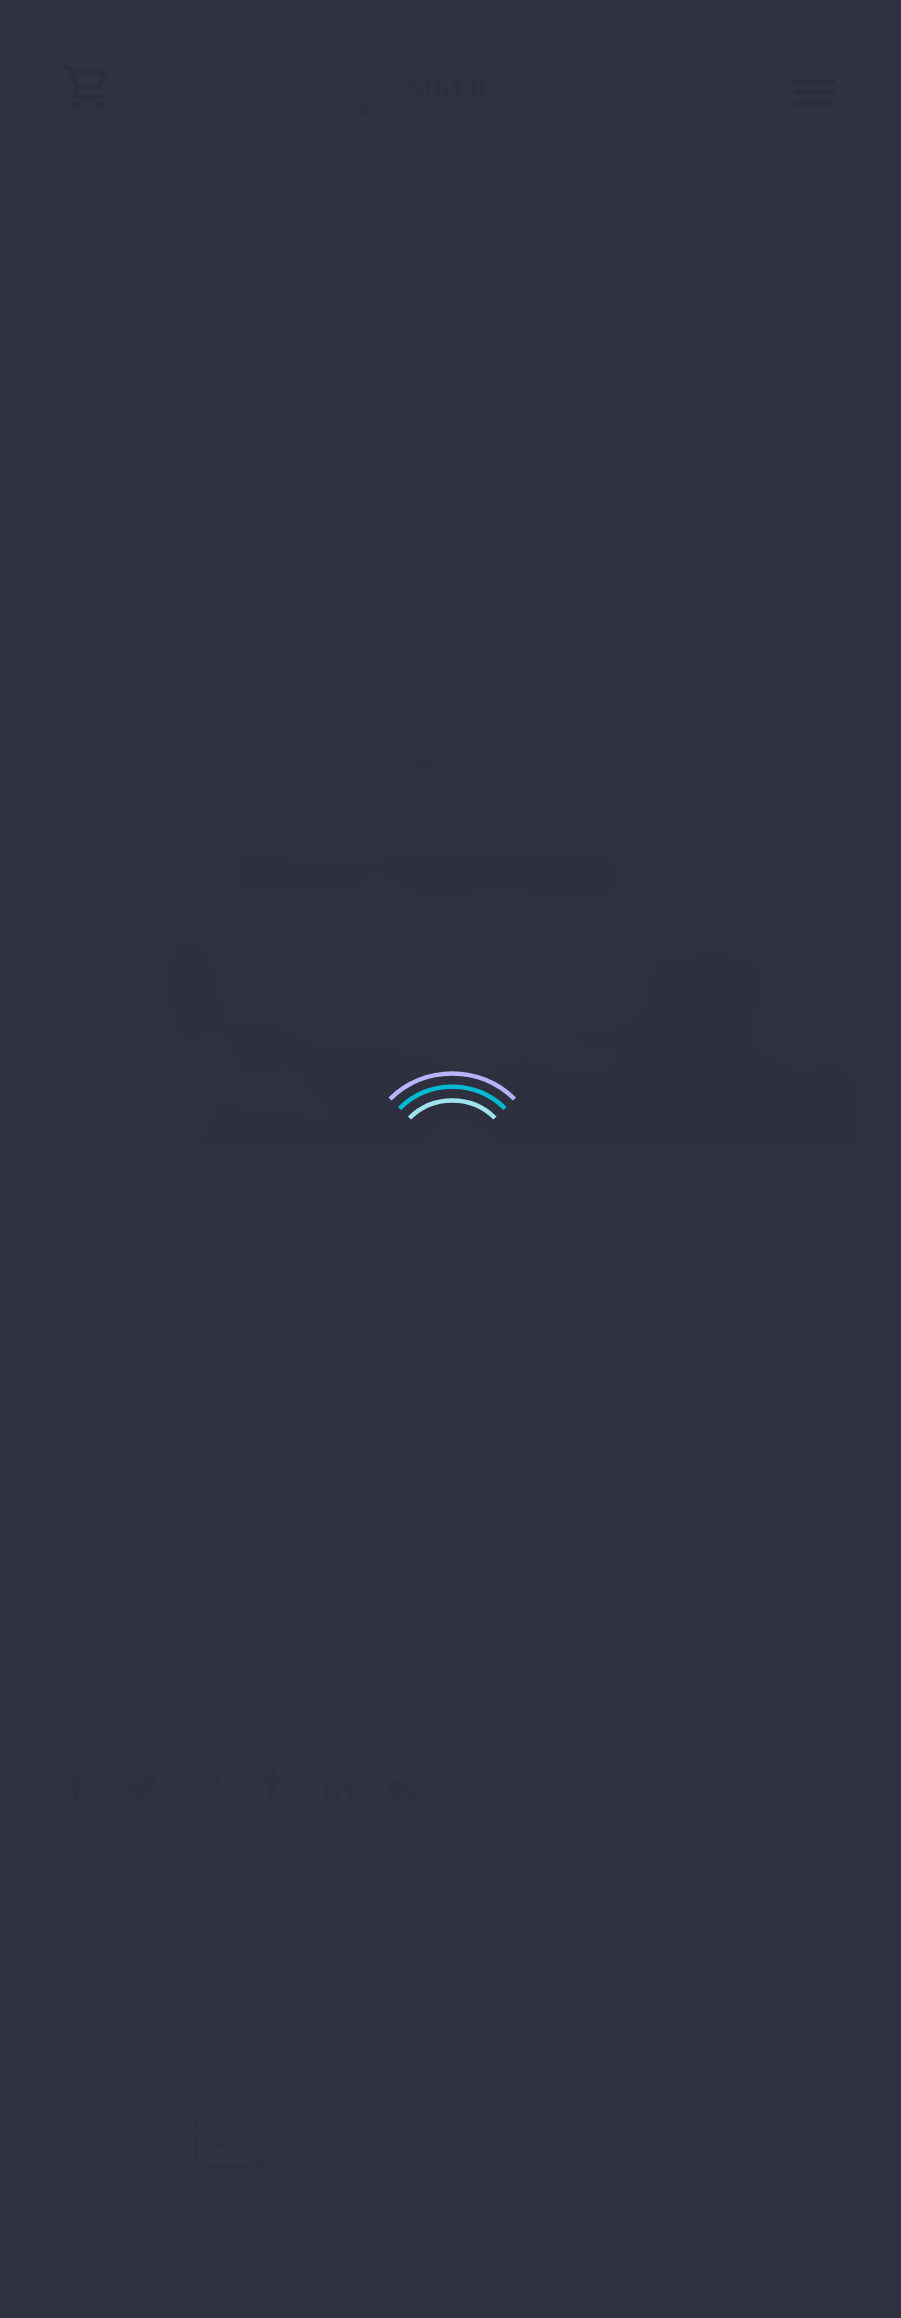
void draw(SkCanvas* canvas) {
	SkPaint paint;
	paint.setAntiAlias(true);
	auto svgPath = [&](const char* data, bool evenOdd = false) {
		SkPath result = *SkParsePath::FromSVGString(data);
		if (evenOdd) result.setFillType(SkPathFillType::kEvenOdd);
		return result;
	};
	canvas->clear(0xff303241);
	canvas->drawImageRect(SkImages::DeferredFromEncodedData(SkData::MakeFromFileName("img1.png")), SkRect::MakeXYWH(63, 65, 45, 46), SkSamplingOptions());
	canvas->drawImageRect(SkImages::DeferredFromEncodedData(SkData::MakeFromFileName("img2.png")), SkRect::MakeXYWH(297, 38, 309, 100), SkSamplingOptions());
	paint.setColor(0xff2c2e3d);
	canvas->drawRect(SkRect::MakeXYWH(794, 79, 41, 5), paint);
	canvas->drawRect(SkRect::MakeXYWH(794, 90, 41, 5), paint);
	canvas->drawRect(SkRect::MakeXYWH(794, 101, 41, 5), paint);
	canvas->drawImageRect(SkImages::DeferredFromEncodedData(SkData::MakeFromFileName("img3.png")), SkRect::MakeXYWH(47, 691, 808, 455), SkSamplingOptions());
	canvas->drawImageRect(SkImages::DeferredFromEncodedData(SkData::MakeFromFileName("img4.png")), SkRect::MakeXYWH(67, 1768, 19, 37), SkSamplingOptions());
	canvas->drawImageRect(SkImages::DeferredFromEncodedData(SkData::MakeFromFileName("img5.png")), SkRect::MakeXYWH(124, 1771, 36, 31), SkSamplingOptions());
	canvas->drawImageRect(SkImages::DeferredFromEncodedData(SkData::MakeFromFileName("img6.png")), SkRect::MakeXYWH(193, 1768, 28, 37), SkSamplingOptions());
	canvas->drawImageRect(SkImages::DeferredFromEncodedData(SkData::MakeFromFileName("img7.png")), SkRect::MakeXYWH(263, 1768, 23, 37), SkSamplingOptions());
	canvas->drawImageRect(SkImages::DeferredFromEncodedData(SkData::MakeFromFileName("img8.png")), SkRect::MakeXYWH(324, 1770, 30, 35), SkSamplingOptions());
	canvas->drawImageRect(SkImages::DeferredFromEncodedData(SkData::MakeFromFileName("img9.png")), SkRect::MakeXYWH(387, 1772, 36, 30), SkSamplingOptions());
	canvas->drawImageRect(SkImages::DeferredFromEncodedData(SkData::MakeFromFileName("img10.png")), SkRect::MakeXYWH(193, 2115, 73, 54), SkSamplingOptions());
	paint.setStroke(true);
	paint.setStrokeWidth(4.5);
	paint.setColor(0xffb6b4fb);
	canvas->drawPath(svgPath("M390 1099C424.5 1065 480 1065 514.5 1099"), paint);
	paint.setColor(0xff01b9d1);
	canvas->drawPath(svgPath("M399.5 1108.5C428.5 1079.5 476 1079.5 505 1108.5"), paint);
	paint.setColor(0xffa1e3ec);
	canvas->drawPath(svgPath("M409.5 1118C432.5 1094.5 472 1094.5 495 1118"), paint);
}
